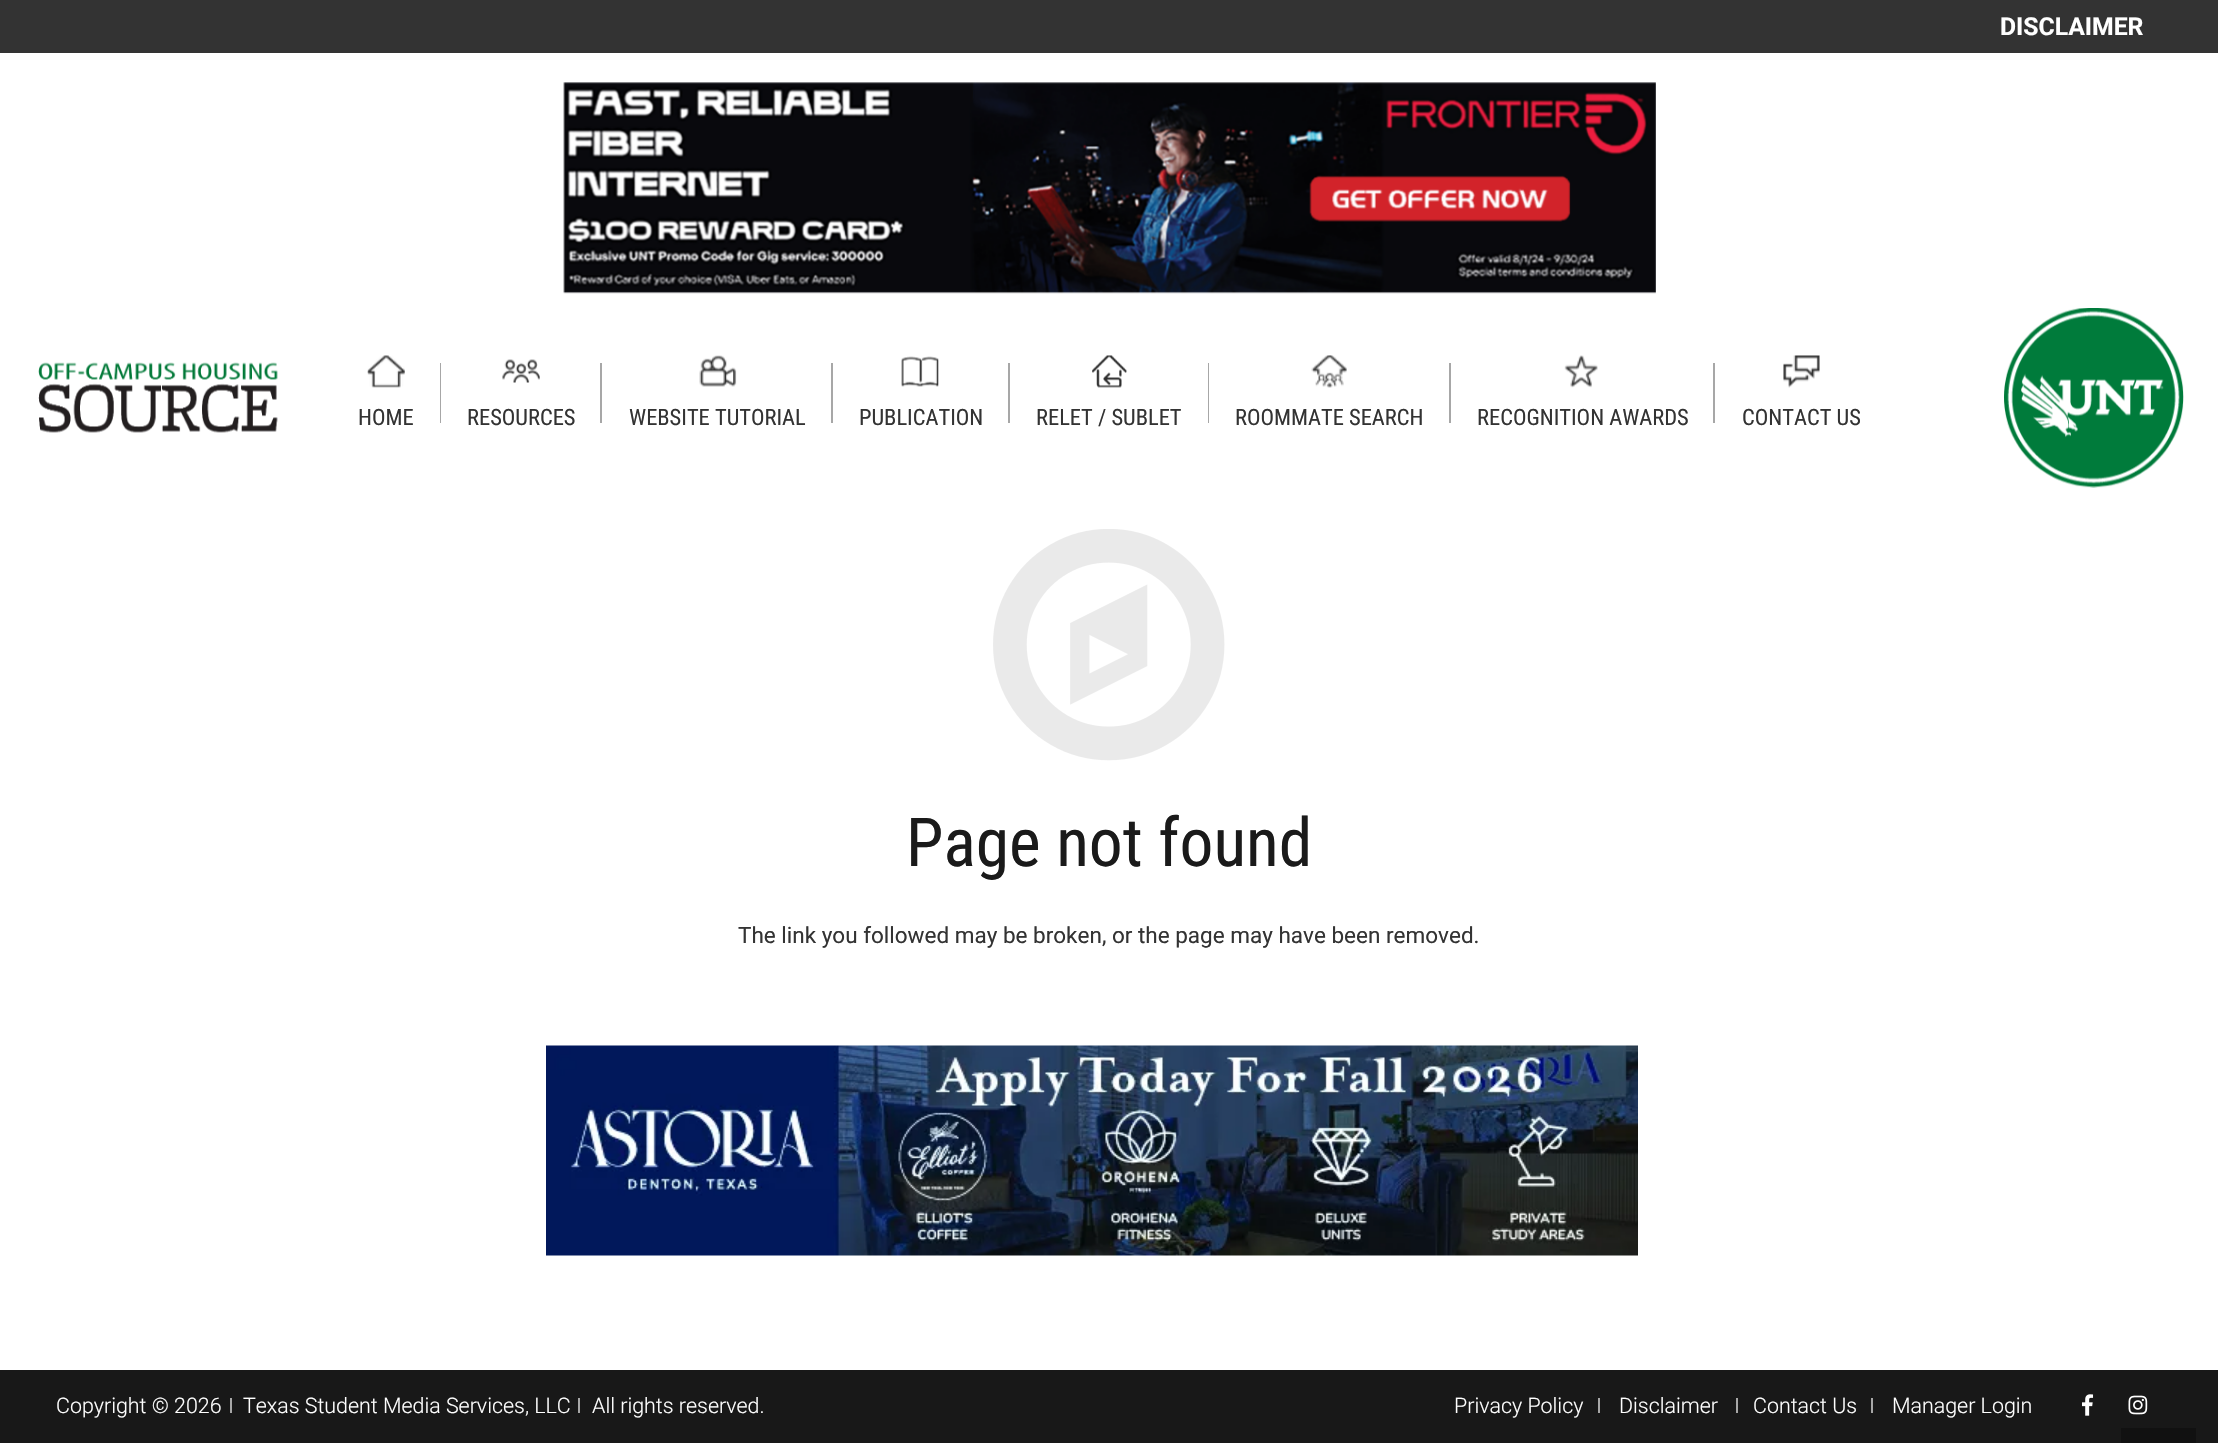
void draw(SkCanvas* canvas) {
	SkPaint paint;
	paint.setAntiAlias(true);
	canvas->clear(0xffffffff);
	paint.setColor(0xff333333);
	canvas->drawRect(SkRect::MakeXYWH(0, 0, 2218, 53), paint);
	SkFont f1(fontMgr->matchFamilyStyle("Roboto", SkFontStyle::Bold()), 24.75);
	f1.setSubpixel(true);
	paint.setColor(0xffffffff);
	canvas->drawString("DISCLAIMER", 2000, 35, f1, paint);
	canvas->drawImageRect(SkImages::DeferredFromEncodedData(SkData::MakeFromFileName("img1.png")), SkRect::MakeXYWH(563, 82, 1093, 212), SkSamplingOptions());
	canvas->drawImageRect(SkImages::DeferredFromEncodedData(SkData::MakeFromFileName("img2.png")), SkRect::MakeXYWH(38, 362, 240, 71), SkSamplingOptions());
	canvas->drawImageRect(SkImages::DeferredFromEncodedData(SkData::MakeFromFileName("img3.png")), SkRect::MakeXYWH(367, 355, 38, 33), SkSamplingOptions());
	paint.setColor(0xffa7a7a7);
	canvas->drawRect(SkRect::MakeXYWH(440, 363, 1, 60), paint);
	SkFont f2(fontMgr->matchFamilyStyle("Roboto Condensed", SkFontStyle::Normal()), 22.5);
	f2.setSubpixel(true);
	paint.setColor(0xff333333);
	canvas->drawString("HOME", 358, 425, f2, paint);
	canvas->drawImageRect(SkImages::DeferredFromEncodedData(SkData::MakeFromFileName("img4.png")), SkRect::MakeXYWH(502, 359, 38, 24), SkSamplingOptions());
	paint.setColor(0xffa7a7a7);
	canvas->drawRect(SkRect::MakeXYWH(600, 363, 2, 60), paint);
	paint.setColor(0xff333333);
	canvas->drawString("RESOURCES", 467, 425, f2, paint);
	canvas->drawImageRect(SkImages::DeferredFromEncodedData(SkData::MakeFromFileName("img5.png")), SkRect::MakeXYWH(699, 355, 38, 32), SkSamplingOptions());
	paint.setColor(0xffa7a7a7);
	canvas->drawRect(SkRect::MakeXYWH(831, 363, 2, 60), paint);
	paint.setColor(0xff333333);
	canvas->drawString("WEBSITE TUTORIAL", 629, 425, f2, paint);
	canvas->drawImageRect(SkImages::DeferredFromEncodedData(SkData::MakeFromFileName("img6.png")), SkRect::MakeXYWH(901, 356, 38, 31), SkSamplingOptions());
	paint.setColor(0xffa7a7a7);
	canvas->drawRect(SkRect::MakeXYWH(1008, 363, 2, 60), paint);
	paint.setColor(0xff333333);
	canvas->drawString("PUBLICATION", 859, 425, f2, paint);
	canvas->drawImageRect(SkImages::DeferredFromEncodedData(SkData::MakeFromFileName("img7.png")), SkRect::MakeXYWH(1092, 355, 35, 33), SkSamplingOptions());
	paint.setColor(0xffa7a7a7);
	canvas->drawRect(SkRect::MakeXYWH(1208, 363, 1, 60), paint);
	paint.setColor(0xff333333);
	canvas->drawString("RELET / SUBLET", 1036, 425, f2, paint);
	canvas->drawImageRect(SkImages::DeferredFromEncodedData(SkData::MakeFromFileName("img8.png")), SkRect::MakeXYWH(1311, 355, 36, 33), SkSamplingOptions());
	paint.setColor(0xffa7a7a7);
	canvas->drawRect(SkRect::MakeXYWH(1449, 363, 2, 60), paint);
	paint.setColor(0xff333333);
	canvas->drawString("ROOMMATE SEARCH", 1235, 425, f2, paint);
	canvas->drawImageRect(SkImages::DeferredFromEncodedData(SkData::MakeFromFileName("img9.png")), SkRect::MakeXYWH(1564, 355, 34, 33), SkSamplingOptions());
	paint.setColor(0xffa7a7a7);
	canvas->drawRect(SkRect::MakeXYWH(1713, 363, 2, 60), paint);
	paint.setColor(0xff333333);
	canvas->drawString("RECOGNITION AWARDS", 1477, 425, f2, paint);
	canvas->drawImageRect(SkImages::DeferredFromEncodedData(SkData::MakeFromFileName("img10.png")), SkRect::MakeXYWH(1783, 355, 37, 33), SkSamplingOptions());
	canvas->drawString("CONTACT US", 1742, 425, f2, paint);
	canvas->drawImageRect(SkImages::DeferredFromEncodedData(SkData::MakeFromFileName("img11.png")), SkRect::MakeXYWH(2004, 308, 180, 180), SkSamplingOptions());
	canvas->drawImageRect(SkImages::DeferredFromEncodedData(SkData::MakeFromFileName("img12.png")), SkRect::MakeXYWH(993, 529, 232, 232), SkSamplingOptions());
	SkFont f3(fontMgr->matchFamilyStyle("Roboto Condensed", SkFontStyle::Normal()), 67.5);
	f3.setSubpixel(true);
	paint.setColor(0xff1a1a1a);
	canvas->drawString("Page not found", 906, 866, f3, paint);
	SkFont f4(fontMgr->matchFamilyStyle("Roboto", SkFontStyle::Normal()), 22.5);
	f4.setSubpixel(true);
	paint.setColor(0xff333333);
	canvas->drawString("The link you followed may be broken, or the page may have been removed.", 738, 943, f4, paint);
	canvas->drawImageRect(SkImages::DeferredFromEncodedData(SkData::MakeFromFileName("img13.png")), SkRect::MakeXYWH(546, 1045, 1092, 211), SkSamplingOptions());
	paint.setColor(0xff181818);
	canvas->drawRect(SkRect::MakeXYWH(0, 1370, 2218, 73), paint);
	SkFont f5(fontMgr->matchFamilyStyle("Roboto", SkFontStyle(300, SkFontStyle::kNormal_Width, SkFontStyle::kUpright_Slant)), 21.4);
	f5.setSubpixel(true);
	paint.setColor(0xffffffff);
	canvas->drawString("Copyright © 2026", 56, 1413, f5, paint);
	paint.setColor(0xffa7a7a7);
	canvas->drawRect(SkRect::MakeXYWH(230, 1398, 2, 15), paint);
	paint.setColor(0xffffffff);
	canvas->drawString("Texas Student Media Services, LLC", 243, 1413, f5, paint);
	paint.setColor(0xffa7a7a7);
	canvas->drawRect(SkRect::MakeXYWH(578, 1398, 2, 15), paint);
	paint.setColor(0xffffffff);
	canvas->drawString("All rights reserved.", 592, 1413, f5, paint);
	canvas->drawString("Privacy Policy", 1454, 1413, f5, paint);
	paint.setColor(0xffa7a7a7);
	canvas->drawRect(SkRect::MakeXYWH(1598, 1398, 2, 15), paint);
	paint.setColor(0xffffffff);
	canvas->drawString("Disclaimer", 1619, 1413, f5, paint);
	paint.setColor(0xffa7a7a7);
	canvas->drawRect(SkRect::MakeXYWH(1736, 1398, 2, 15), paint);
	paint.setColor(0xffffffff);
	canvas->drawString("Contact Us", 1753, 1413, f5, paint);
	paint.setColor(0xffa7a7a7);
	canvas->drawRect(SkRect::MakeXYWH(1871, 1398, 2, 15), paint);
	paint.setColor(0xffffffff);
	canvas->drawString("Manager Login", 1892, 1413, f5, paint);
	canvas->drawImageRect(SkImages::DeferredFromEncodedData(SkData::MakeFromFileName("img14.png")), SkRect::MakeXYWH(2082, 1394, 12, 22), SkSamplingOptions());
	canvas->drawImageRect(SkImages::DeferredFromEncodedData(SkData::MakeFromFileName("img15.png")), SkRect::MakeXYWH(2128, 1395, 20, 20), SkSamplingOptions());
	paint.setColor(0xff111111);
	canvas->drawRect(SkRect::MakeXYWH(2121, 1428, 75, 15), paint);
}
